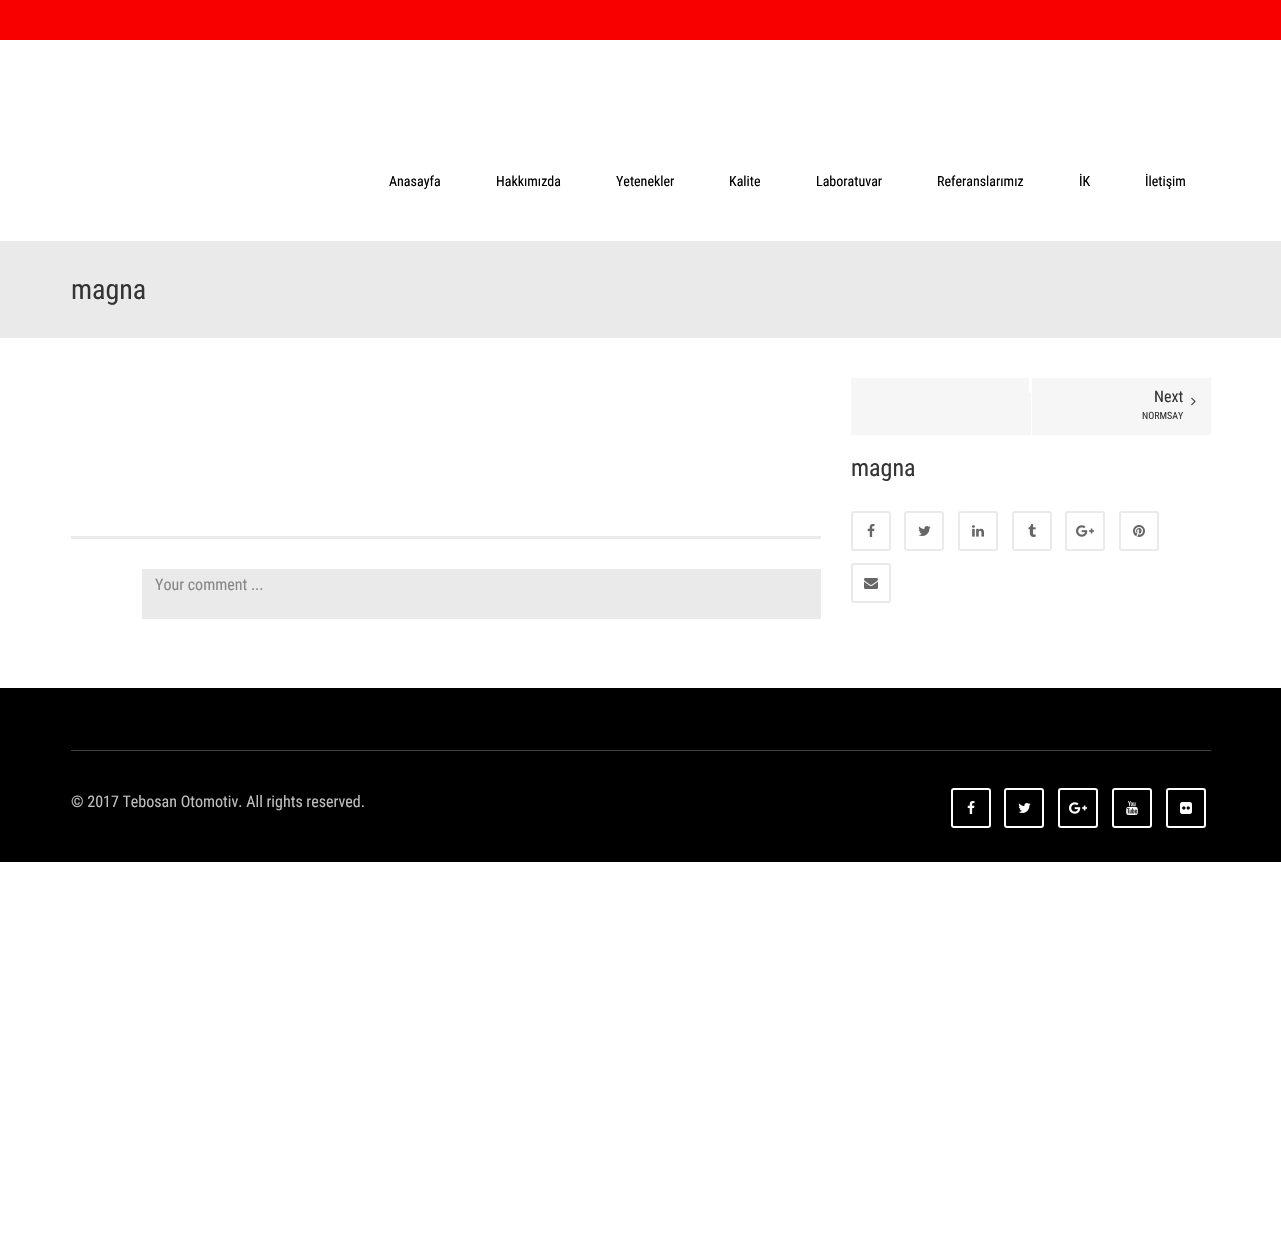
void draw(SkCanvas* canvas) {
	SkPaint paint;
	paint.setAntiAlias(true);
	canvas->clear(0xffffffff);
	paint.setColor(0xfff80000);
	canvas->drawRect(SkRect::MakeXYWH(0, 0, 1281, 40), paint);
	SkFont f1(fontMgr->matchFamilyStyle("Roboto Condensed", SkFontStyle::Normal()), 14);
	f1.setSubpixel(true);
	paint.setColor(0xff000000);
	canvas->drawString("Anasayfa", 389, 186, f1, paint);
	canvas->drawString("Hakkımızda", 496, 186, f1, paint);
	canvas->drawString("Yetenekler", 616, 186, f1, paint);
	canvas->drawString("Kalite", 729, 186, f1, paint);
	canvas->drawString("Laboratuvar", 816, 186, f1, paint);
	canvas->drawString("Referanslarımız", 937, 186, f1, paint);
	canvas->drawString("İK", 1079, 186, f1, paint);
	canvas->drawString("İletişim", 1145, 186, f1, paint);
	paint.setColor(0xffeaeaea);
	canvas->drawRect(SkRect::MakeXYWH(0, 241, 1281, 97), paint);
	SkFont f2(fontMgr->matchFamilyStyle("Roboto Condensed", SkFontStyle::Normal()), 28);
	f2.setSubpixel(true);
	paint.setColor(0xff343434);
	canvas->drawString("magna", 71, 299, f2, paint);
	paint.setColor(0xfff6f6f6);
	canvas->drawRect(SkRect::MakeXYWH(851, 378, 360, 57), paint);
	paint.setColor(0xffffffff);
	canvas->drawRect(SkRect::MakeXYWH(1029, 378, 2, 15), paint);
	canvas->drawRect(SkRect::MakeXYWH(1031, 378, 1, 57), paint);
	SkFont f3(fontMgr->matchFamilyStyle("Roboto Condensed", SkFontStyle::Normal()), 16);
	f3.setSubpixel(true);
	paint.setColor(0xff343434);
	canvas->drawString("Next", 1154, 402, f3, paint);
	SkFont f4(fontMgr->matchFamilyStyle("Roboto Condensed", SkFontStyle::Normal()), 10);
	f4.setSubpixel(true);
	canvas->drawString("NORMSAY", 1142, 419, f4, paint);
	canvas->drawImageRect(SkImages::DeferredFromEncodedData(SkData::MakeFromFileName("img1.png")), SkRect::MakeXYWH(1191, 397, 5, 9), SkSamplingOptions());
	SkFont f5(fontMgr->matchFamilyStyle("Roboto Condensed", SkFontStyle::Normal()), 24);
	f5.setSubpixel(true);
	canvas->drawString("magna", 851, 476, f5, paint);
	paint.setStroke(true);
	paint.setStrokeWidth(2);
	paint.setColor(0xffeaeaea);
	canvas->drawRoundRect(SkRect::MakeXYWH(852, 512, 38, 38), 2, 2, paint);
	canvas->drawImageRect(SkImages::DeferredFromEncodedData(SkData::MakeFromFileName("img2.png")), SkRect::MakeXYWH(867, 524, 8, 13), SkSamplingOptions());
	canvas->drawRoundRect(SkRect::MakeXYWH(905, 512, 38, 38), 2, 2, paint);
	canvas->drawImageRect(SkImages::DeferredFromEncodedData(SkData::MakeFromFileName("img3.png")), SkRect::MakeXYWH(918, 526, 13, 10), SkSamplingOptions());
	canvas->drawRoundRect(SkRect::MakeXYWH(959, 512, 38, 38), 2, 2, paint);
	canvas->drawImageRect(SkImages::DeferredFromEncodedData(SkData::MakeFromFileName("img4.png")), SkRect::MakeXYWH(972, 525, 12, 12), SkSamplingOptions());
	canvas->drawRoundRect(SkRect::MakeXYWH(1013, 512, 38, 38), 2, 2, paint);
	canvas->drawImageRect(SkImages::DeferredFromEncodedData(SkData::MakeFromFileName("img5.png")), SkRect::MakeXYWH(1028, 524, 8, 13), SkSamplingOptions());
	canvas->drawRoundRect(SkRect::MakeXYWH(1066, 512, 38, 38), 2, 2, paint);
	canvas->drawImageRect(SkImages::DeferredFromEncodedData(SkData::MakeFromFileName("img6.png")), SkRect::MakeXYWH(1076, 525, 18, 12), SkSamplingOptions());
	canvas->drawRoundRect(SkRect::MakeXYWH(1120, 512, 38, 38), 2, 2, paint);
	canvas->drawImageRect(SkImages::DeferredFromEncodedData(SkData::MakeFromFileName("img7.png")), SkRect::MakeXYWH(1133, 525, 12, 12), SkSamplingOptions());
	canvas->drawRoundRect(SkRect::MakeXYWH(852, 564, 38, 38), 2, 2, paint);
	canvas->drawImageRect(SkImages::DeferredFromEncodedData(SkData::MakeFromFileName("img8.png")), SkRect::MakeXYWH(864, 578, 14, 11), SkSamplingOptions());
	paint.setStroke(false);
	canvas->drawRect(SkRect::MakeXYWH(71, 536, 750, 3), paint);
	canvas->drawRect(SkRect::MakeXYWH(142, 569, 679, 50), paint);
	paint.setColor(0xff878787);
	canvas->drawString("Your comment ...", 155, 590, f3, paint);
	paint.setColor(0xff000000);
	canvas->drawRect(SkRect::MakeXYWH(0, 688, 1281, 174), paint);
	paint.setColor(0xff404040);
	canvas->drawRect(SkRect::MakeXYWH(71, 750, 1140, 1), paint);
	paint.setColor(0xffbfbfbf);
	canvas->drawString("© 2017 Tebosan Otomotiv. All rights reserved.", 71, 807, f3, paint);
	paint.setStroke(true);
	paint.setColor(0xffffffff);
	canvas->drawRoundRect(SkRect::MakeXYWH(952, 789, 38, 38), 2, 2, paint);
	canvas->drawImageRect(SkImages::DeferredFromEncodedData(SkData::MakeFromFileName("img9.png")), SkRect::MakeXYWH(967, 801, 8, 13), SkSamplingOptions());
	canvas->drawRoundRect(SkRect::MakeXYWH(1005, 789, 38, 38), 2, 2, paint);
	canvas->drawImageRect(SkImages::DeferredFromEncodedData(SkData::MakeFromFileName("img10.png")), SkRect::MakeXYWH(1018, 803, 13, 10), SkSamplingOptions());
	canvas->drawRoundRect(SkRect::MakeXYWH(1059, 789, 38, 38), 2, 2, paint);
	canvas->drawImageRect(SkImages::DeferredFromEncodedData(SkData::MakeFromFileName("img11.png")), SkRect::MakeXYWH(1069, 802, 18, 12), SkSamplingOptions());
	canvas->drawRoundRect(SkRect::MakeXYWH(1113, 789, 38, 38), 2, 2, paint);
	canvas->drawImageRect(SkImages::DeferredFromEncodedData(SkData::MakeFromFileName("img12.png")), SkRect::MakeXYWH(1126, 801, 12, 14), SkSamplingOptions());
	canvas->drawRoundRect(SkRect::MakeXYWH(1167, 789, 38, 38), 2, 2, paint);
	canvas->drawImageRect(SkImages::DeferredFromEncodedData(SkData::MakeFromFileName("img13.png")), SkRect::MakeXYWH(1180, 802, 12, 12), SkSamplingOptions());
}
